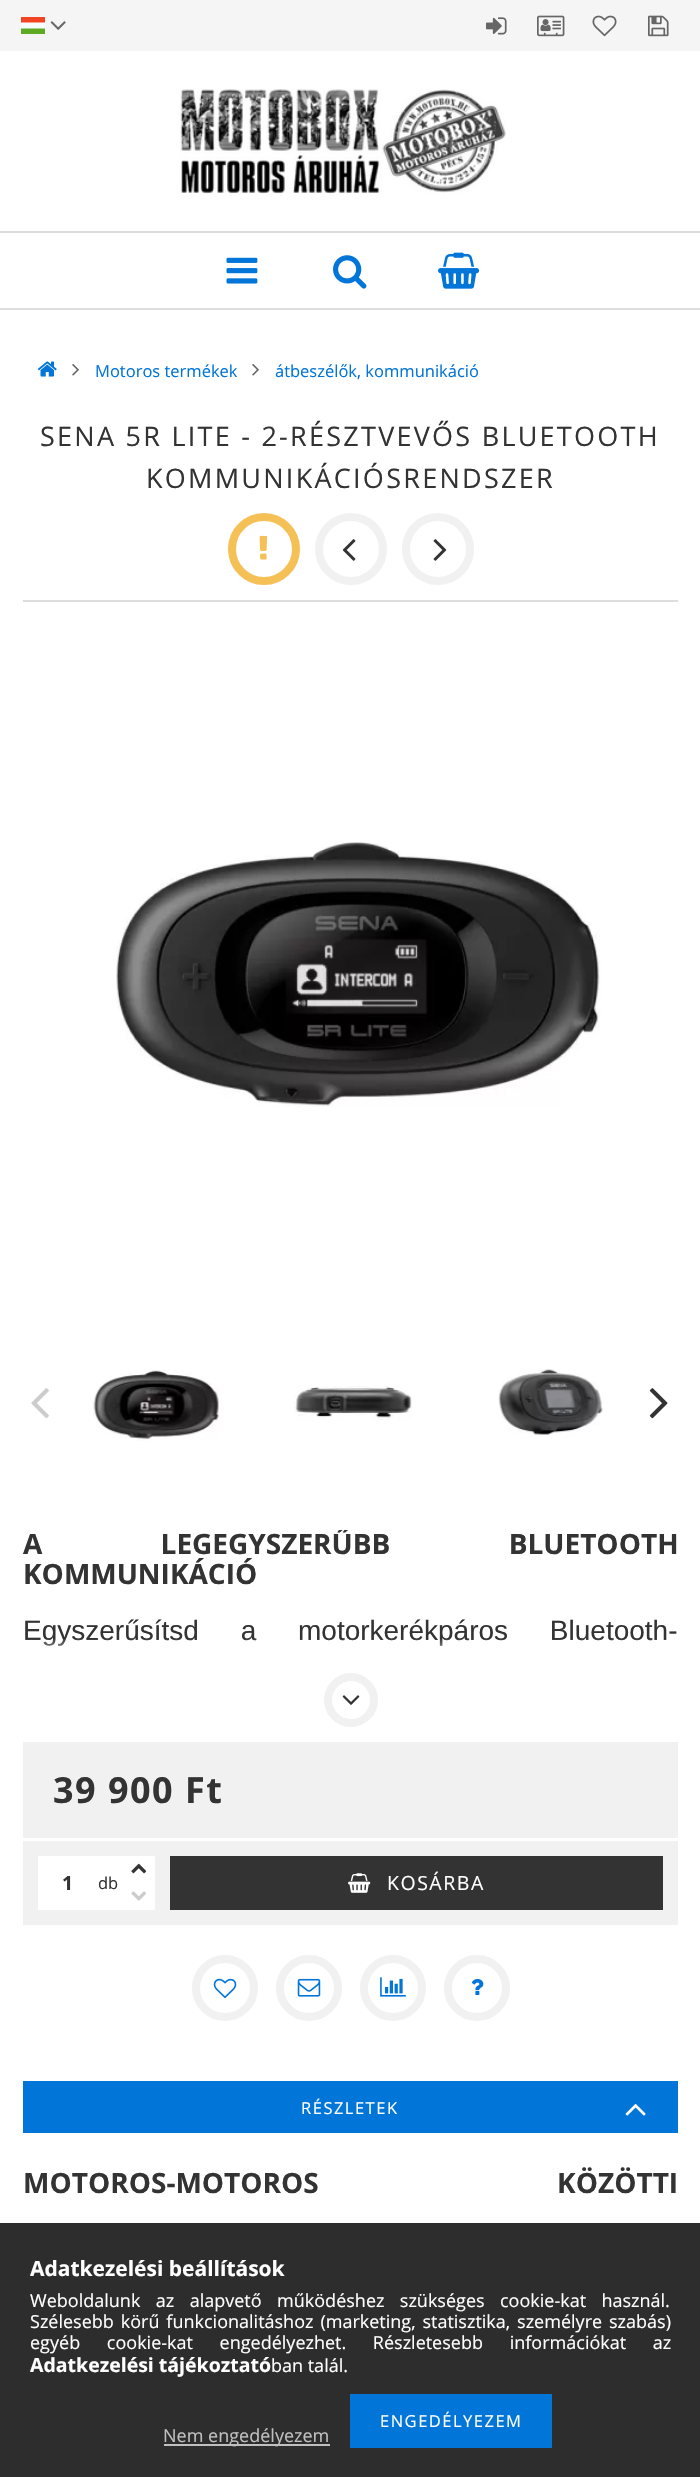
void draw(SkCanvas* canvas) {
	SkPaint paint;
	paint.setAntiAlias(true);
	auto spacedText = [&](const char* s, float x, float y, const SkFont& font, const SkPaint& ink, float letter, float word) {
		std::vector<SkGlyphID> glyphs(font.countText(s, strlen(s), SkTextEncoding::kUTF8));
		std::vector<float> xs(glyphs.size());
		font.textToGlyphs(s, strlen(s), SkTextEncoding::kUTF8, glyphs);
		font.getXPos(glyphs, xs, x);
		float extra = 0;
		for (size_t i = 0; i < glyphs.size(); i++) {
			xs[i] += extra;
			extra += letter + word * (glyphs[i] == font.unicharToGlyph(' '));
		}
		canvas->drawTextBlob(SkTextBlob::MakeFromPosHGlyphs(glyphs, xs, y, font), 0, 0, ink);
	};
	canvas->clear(0xffffffff);
	paint.setColor(0xfff5f5f5);
	canvas->drawRect(SkRect::MakeXYWH(0, 0, 700, 51), paint);
	canvas->drawImageRect(SkImages::DeferredFromEncodedData(SkData::MakeFromFileName("img1.png")), SkRect::MakeXYWH(21, 17, 24, 17), SkSamplingOptions());
	canvas->drawImageRect(SkImages::DeferredFromEncodedData(SkData::MakeFromFileName("img2.png")), SkRect::MakeXYWH(50, 21, 16, 9), SkSamplingOptions());
	canvas->drawImageRect(SkImages::DeferredFromEncodedData(SkData::MakeFromFileName("img3.png")), SkRect::MakeXYWH(486, 17, 21, 18), SkSamplingOptions());
	canvas->drawImageRect(SkImages::DeferredFromEncodedData(SkData::MakeFromFileName("img4.png")), SkRect::MakeXYWH(537, 15, 28, 22), SkSamplingOptions());
	canvas->drawImageRect(SkImages::DeferredFromEncodedData(SkData::MakeFromFileName("img5.png")), SkRect::MakeXYWH(592, 15, 25, 22), SkSamplingOptions());
	canvas->drawImageRect(SkImages::DeferredFromEncodedData(SkData::MakeFromFileName("img6.png")), SkRect::MakeXYWH(648, 15, 21, 22), SkSamplingOptions());
	canvas->drawImageRect(SkImages::DeferredFromEncodedData(SkData::MakeFromFileName("img7.png")), SkRect::MakeXYWH(180, 89, 326, 105), SkSamplingOptions());
	paint.setColor(0xffdddddd);
	canvas->drawRect(SkRect::MakeXYWH(0, 231, 700, 2), paint);
	canvas->drawRect(SkRect::MakeXYWH(0, 308, 700, 2), paint);
	canvas->drawImageRect(SkImages::DeferredFromEncodedData(SkData::MakeFromFileName("img8.png")), SkRect::MakeXYWH(226, 257, 32, 27), SkSamplingOptions());
	canvas->drawImageRect(SkImages::DeferredFromEncodedData(SkData::MakeFromFileName("img9.png")), SkRect::MakeXYWH(333, 255, 34, 34), SkSamplingOptions());
	canvas->drawImageRect(SkImages::DeferredFromEncodedData(SkData::MakeFromFileName("img10.png")), SkRect::MakeXYWH(438, 252, 42, 37), SkSamplingOptions());
	canvas->drawImageRect(SkImages::DeferredFromEncodedData(SkData::MakeFromFileName("img11.png")), SkRect::MakeXYWH(37, 361, 20, 16), SkSamplingOptions());
	canvas->drawImageRect(SkImages::DeferredFromEncodedData(SkData::MakeFromFileName("img12.png")), SkRect::MakeXYWH(72, 364, 7, 12), SkSamplingOptions());
	SkFont f1(fontMgr->matchFamilyStyle("Open Sans", SkFontStyle::Normal()), 16.5);
	f1.setSubpixel(true);
	paint.setColor(0xff0275d8);
	canvas->drawString("Motoros termékek", 95, 377, f1, paint);
	canvas->drawImageRect(SkImages::DeferredFromEncodedData(SkData::MakeFromFileName("img12.png")), SkRect::MakeXYWH(252, 364, 7, 12), SkSamplingOptions());
	canvas->drawString("átbeszélők, kommunikáció", 275, 377, f1, paint);
	paint.setColor(0xffdddddd);
	canvas->drawRect(SkRect::MakeXYWH(23, 600, 655, 2), paint);
	SkFont f2(fontMgr->matchFamilyStyle("Open Sans", SkFontStyle::Normal()), 27);
	f2.setSubpixel(true);
	paint.setColor(0xff333333);
	spacedText("SENA 5R LITE - 2-RÉSZTVEVŐS BLUETOOTH", 40, 446, f2, paint, 2.25, 0);
	spacedText("KOMMUNIKÁCIÓSRENDSZER", 146, 488, f2, paint, 2.25, 0);
	paint.setStroke(true);
	paint.setStrokeWidth(8);
	paint.setColor(0xfff5c056);
	canvas->drawCircle(264, 549, 32, paint);
	canvas->drawImageRect(SkImages::DeferredFromEncodedData(SkData::MakeFromFileName("img13.png")), SkRect::MakeXYWH(259, 535, 9, 25), SkSamplingOptions());
	paint.setColor(0xfff1f1f1);
	canvas->drawCircle(351, 549, 32, paint);
	canvas->drawImageRect(SkImages::DeferredFromEncodedData(SkData::MakeFromFileName("img14.png")), SkRect::MakeXYWH(342, 539, 14, 22), SkSamplingOptions());
	canvas->drawCircle(438, 549, 32, paint);
	canvas->drawImageRect(SkImages::DeferredFromEncodedData(SkData::MakeFromFileName("img15.png")), SkRect::MakeXYWH(433, 539, 14, 22), SkSamplingOptions());
	canvas->drawImageRect(SkImages::DeferredFromEncodedData(SkData::MakeFromFileName("img16.png")), SkRect::MakeXYWH(116, 842, 485, 265), SkSamplingOptions());
	canvas->drawImageRect(SkImages::DeferredFromEncodedData(SkData::MakeFromFileName("img17.png")), SkRect::MakeXYWH(31, 1388, 18, 31), SkSamplingOptions());
	canvas->drawImageRect(SkImages::DeferredFromEncodedData(SkData::MakeFromFileName("img18.png")), SkRect::MakeXYWH(92, 1369, 127, 72), SkSamplingOptions());
	canvas->drawImageRect(SkImages::DeferredFromEncodedData(SkData::MakeFromFileName("img19.png")), SkRect::MakeXYWH(294, 1386, 118, 34), SkSamplingOptions());
	canvas->drawImageRect(SkImages::DeferredFromEncodedData(SkData::MakeFromFileName("img20.png")), SkRect::MakeXYWH(498, 1369, 106, 68), SkSamplingOptions());
	canvas->drawImageRect(SkImages::DeferredFromEncodedData(SkData::MakeFromFileName("img21.png")), SkRect::MakeXYWH(649, 1388, 19, 31), SkSamplingOptions());
	canvas->save();
	canvas->clipRect(SkRect::MakeXYWH(23, 1530, 655, 135));
	SkFont f3(fontMgr->matchFamilyStyle("Open Sans", SkFontStyle::Bold()), 28);
	f3.setSubpixel(true);
	paint.setStroke(false);
	paint.setColor(0xff333333);
	spacedText("A LEGEGYSZERŰBB BLUETOOTH", 23, 1554, f3, paint, 0, 111);
	canvas->restore();
	canvas->drawString("KOMMUNIKÁCIÓ", 23, 1584, f3, paint);
	SkFont f4(fontMgr->matchFamilyStyle("Liberation Sans", SkFontStyle::Normal()), 28);
	f4.setSubpixel(true);
	spacedText("Egyszerűsítsd a motorkerékpáros Bluetooth-", 23, 1640, f4, paint, 0, 34);
	{
		const SkColor colors[] = {0x00ffffff, 0xffffffff};
		const float stops[] = {0, 1};
		const SkPoint ends[] = {{350, 1638}, {350, 1665}};
		paint.setShader(SkGradientShader::MakeLinear(ends, colors, stops, 2, SkTileMode::kClamp));
		paint.setAlpha(255);
	}
	canvas->drawRect(SkRect::MakeXYWH(25, 1639, 642, 7), paint);
	paint.setStroke(true);
	paint.setShader(nullptr);
	paint.setColor(0xfff1f1f1);
	canvas->drawCircle(351, 1700, 23, paint);
	canvas->drawImageRect(SkImages::DeferredFromEncodedData(SkData::MakeFromFileName("img22.png")), SkRect::MakeXYWH(342, 1695, 18, 10), SkSamplingOptions());
	paint.setStroke(false);
	canvas->drawRect(SkRect::MakeXYWH(23, 1742, 655, 96), paint);
	SkFont f5(fontMgr->matchFamilyStyle("Open Sans", SkFontStyle::Bold()), 36);
	f5.setSubpixel(true);
	paint.setColor(0xff333333);
	spacedText("39 900 Ft", 53, 1803, f5, paint, 1.5, 0);
	paint.setColor(0xfff1f1f1);
	canvas->drawRect(SkRect::MakeXYWH(23, 1841, 655, 84), paint);
	paint.setColor(0xffffffff);
	canvas->drawRect(SkRect::MakeXYWH(38, 1856, 87, 54), paint);
	SkFont f6(fontMgr->matchFamilyStyle("Open Sans", SkFontStyle::Bold()), 19.5);
	f6.setSubpixel(true);
	paint.setColor(0xff333333);
	canvas->drawString("1", 62, 1890, f6, paint);
	canvas->drawString("db", 98, 1889, f1, paint);
	paint.setColor(0xffffffff);
	canvas->drawRect(SkRect::MakeXYWH(125, 1856, 30, 54), paint);
	canvas->drawImageRect(SkImages::DeferredFromEncodedData(SkData::MakeFromFileName("img23.png")), SkRect::MakeXYWH(131, 1863, 16, 11), SkSamplingOptions());
	canvas->drawImageRect(SkImages::DeferredFromEncodedData(SkData::MakeFromFileName("img24.png")), SkRect::MakeXYWH(131, 1891, 15, 10), SkSamplingOptions());
	paint.setColor(0xff333333);
	canvas->drawRect(SkRect::MakeXYWH(170, 1856, 493, 54), paint);
	canvas->drawImageRect(SkImages::DeferredFromEncodedData(SkData::MakeFromFileName("img25.png")), SkRect::MakeXYWH(348, 1873, 23, 20), SkSamplingOptions());
	SkFont f7(fontMgr->matchFamilyStyle("Open Sans", SkFontStyle::Normal()), 19.5);
	f7.setSubpixel(true);
	paint.setColor(0xffffffff);
	spacedText("KOSÁRBA", 387, 1890, f7, paint, 1.5, 0);
	paint.setStroke(true);
	paint.setColor(0xfff1f1f1);
	canvas->drawCircle(225, 1988, 29, paint);
	canvas->drawImageRect(SkImages::DeferredFromEncodedData(SkData::MakeFromFileName("img26.png")), SkRect::MakeXYWH(213, 1978, 24, 20), SkSamplingOptions());
	canvas->drawCircle(309, 1988, 29, paint);
	canvas->drawImageRect(SkImages::DeferredFromEncodedData(SkData::MakeFromFileName("img27.png")), SkRect::MakeXYWH(297, 1978, 24, 19), SkSamplingOptions());
	canvas->drawCircle(393, 1988, 29, paint);
	canvas->drawImageRect(SkImages::DeferredFromEncodedData(SkData::MakeFromFileName("img28.png")), SkRect::MakeXYWH(380, 1977, 26, 20), SkSamplingOptions());
	canvas->drawCircle(477, 1988, 29, paint);
	canvas->drawImageRect(SkImages::DeferredFromEncodedData(SkData::MakeFromFileName("img29.png")), SkRect::MakeXYWH(471, 1978, 13, 17), SkSamplingOptions());
	paint.setStroke(false);
	paint.setColor(0xff0275d8);
	canvas->drawRect(SkRect::MakeXYWH(23, 2081, 655, 52), paint);
	paint.setColor(0xffffffff);
	spacedText("RÉSZLETEK", 301, 2114, f1, paint, 1.5, 0);
	canvas->drawImageRect(SkImages::DeferredFromEncodedData(SkData::MakeFromFileName("img30.png")), SkRect::MakeXYWH(625, 2104, 21, 12), SkSamplingOptions());
	paint.setColor(0xff333333);
	spacedText("MOTOROS-MOTOROS KÖZÖTTI", 23, 2193, f3, paint, 0, 231);
	paint.setColor(0xf2222222);
	canvas->drawRect(SkRect::MakeXYWH(0, 2223, 700, 254), paint);
	SkFont f8(fontMgr->matchFamilyStyle("Open Sans", SkFontStyle::Bold()), 21);
	f8.setSubpixel(true);
	paint.setColor(0xffffffff);
	canvas->drawString("Adatkezelési beállítások", 30, 2276, f8, paint);
	SkFont f9(fontMgr->matchFamilyStyle("Open Sans", SkFontStyle::Normal()), 18);
	f9.setSubpixel(true);
	spacedText("Weboldalunk az alapvető működéshez szükséges cookie-kat használ.", 30, 2307, f9, paint, 0, 10.75);
	spacedText("Szélesebb körű funkcionalitáshoz (marketing, statisztika, személyre szabás)", 30, 2328, f9, paint, 0, 2.25);
	spacedText("egyéb cookie-kat engedélyezhet. Részletesebb információkat az", 30, 2349, f9, paint, 0, 22);
	canvas->drawString("Adatkezelési tájékoztató", 30, 2372, f6, paint);
	canvas->drawString("ban talál.", 271, 2372, f9, paint);
	paint.setColor(0xff0275d8);
	canvas->drawRect(SkRect::MakeXYWH(350, 2394, 202, 54), paint);
	paint.setColor(0xffffffff);
	spacedText("ENGEDÉLYEZEM", 380, 2427, f1, paint, 1.5, 0);
	paint.setColor(0xffc0c0c0);
	canvas->drawRect(SkRect::MakeXYWH(164, 2444, 166, 2), paint);
	canvas->drawString("Nem engedélyezem", 163, 2442, f9, paint);
}
